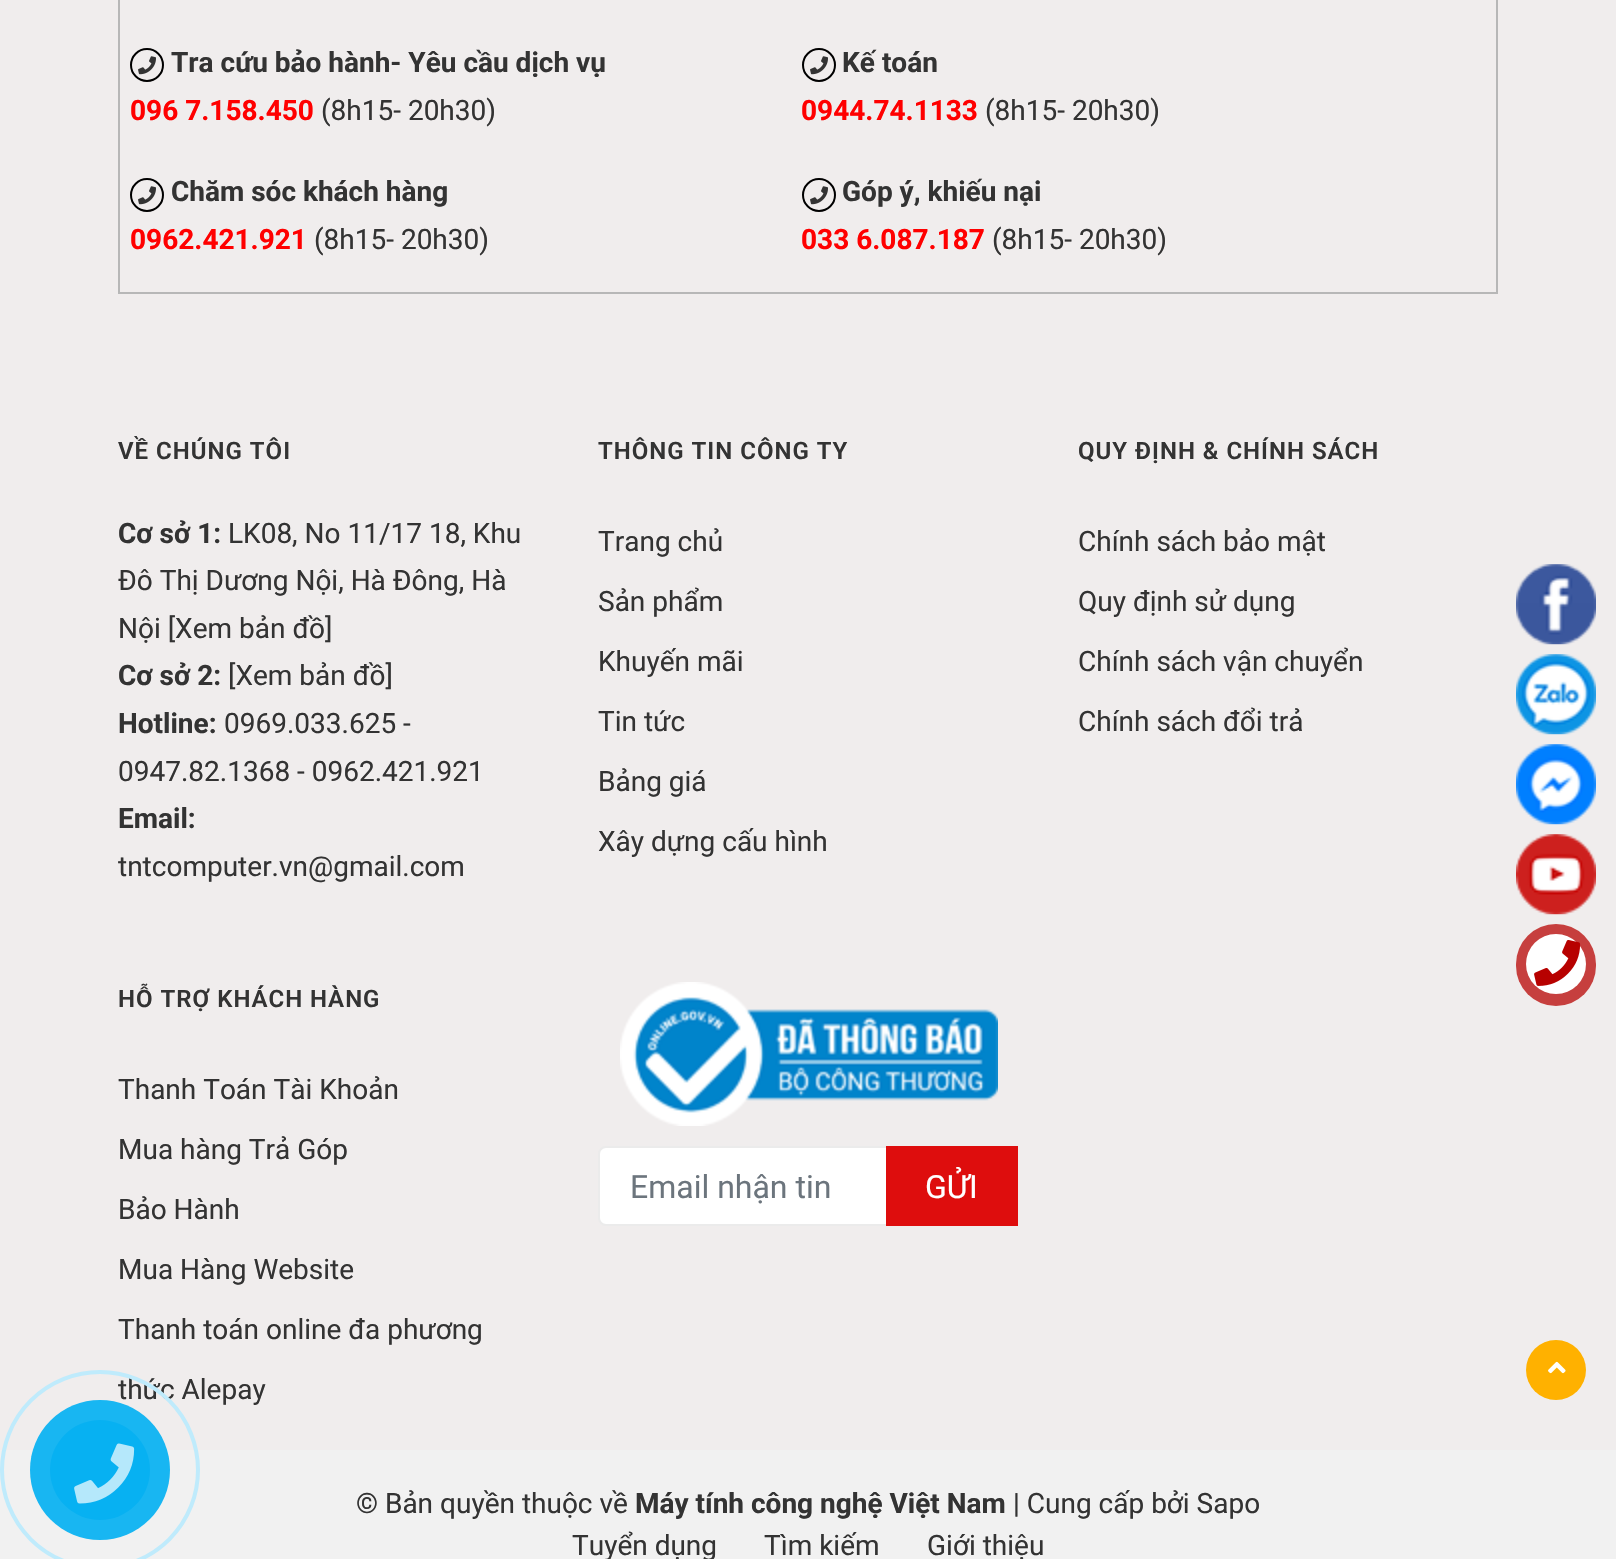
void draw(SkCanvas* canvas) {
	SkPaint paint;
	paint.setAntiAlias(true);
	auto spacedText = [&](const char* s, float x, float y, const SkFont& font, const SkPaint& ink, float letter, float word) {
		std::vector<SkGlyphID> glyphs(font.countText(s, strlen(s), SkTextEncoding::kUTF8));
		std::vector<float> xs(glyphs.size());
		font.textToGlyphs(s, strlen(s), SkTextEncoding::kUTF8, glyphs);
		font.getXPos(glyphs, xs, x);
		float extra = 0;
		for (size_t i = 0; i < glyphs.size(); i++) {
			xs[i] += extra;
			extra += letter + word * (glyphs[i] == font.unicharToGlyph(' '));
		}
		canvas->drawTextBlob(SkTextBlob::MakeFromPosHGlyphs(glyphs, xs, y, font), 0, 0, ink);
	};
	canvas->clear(0xfff0eded);
	paint.setStroke(true);
	paint.setStrokeWidth(2);
	paint.setColor(0xffb7b7b7);
	canvas->drawRect(SkRect::MakeXYWH(119, -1, 1378, 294), paint);
	paint.setColor(0xff000000);
	canvas->drawCircle(147, 65, 16, paint);
	canvas->drawImageRect(SkImages::DeferredFromEncodedData(SkData::MakeFromFileName("img1.png")), SkRect::MakeXYWH(138, 56, 18, 19), SkSamplingOptions());
	SkFont f1(fontMgr->matchFamilyStyle("Roboto", SkFontStyle::Bold()), 28);
	f1.setSubpixel(true);
	paint.setStroke(false);
	paint.setColor(0xff333333);
	canvas->drawString("Tra cứu bảo hành- Yêu cầu dịch vụ", 171, 72, f1, paint);
	paint.setColor(0xffff0000);
	canvas->drawString("096 7.158.450", 130, 120, f1, paint);
	SkFont f2(fontMgr->matchFamilyStyle("Roboto", SkFontStyle::Normal()), 28);
	f2.setSubpixel(true);
	paint.setColor(0xff333333);
	canvas->drawString("(8h15- 20h30)", 321, 120, f2, paint);
	paint.setStroke(true);
	paint.setColor(0xff000000);
	canvas->drawCircle(819, 65, 16, paint);
	canvas->drawImageRect(SkImages::DeferredFromEncodedData(SkData::MakeFromFileName("img1.png")), SkRect::MakeXYWH(810, 56, 18, 19), SkSamplingOptions());
	paint.setStroke(false);
	paint.setColor(0xff333333);
	canvas->drawString("Kế toán", 842, 72, f1, paint);
	paint.setColor(0xffff0000);
	canvas->drawString("0944.74.1133", 801, 120, f1, paint);
	paint.setColor(0xff333333);
	canvas->drawString("(8h15- 20h30)", 985, 120, f2, paint);
	paint.setStroke(true);
	paint.setColor(0xff000000);
	canvas->drawCircle(147, 195, 16, paint);
	canvas->drawImageRect(SkImages::DeferredFromEncodedData(SkData::MakeFromFileName("img1.png")), SkRect::MakeXYWH(138, 186, 18, 19), SkSamplingOptions());
	paint.setStroke(false);
	paint.setColor(0xff333333);
	canvas->drawString("Chăm sóc khách hàng", 171, 201, f1, paint);
	paint.setColor(0xffff0000);
	canvas->drawString("0962.421.921", 130, 249, f1, paint);
	paint.setColor(0xff333333);
	canvas->drawString("(8h15- 20h30)", 314, 249, f2, paint);
	paint.setStroke(true);
	paint.setColor(0xff000000);
	canvas->drawCircle(819, 195, 16, paint);
	canvas->drawImageRect(SkImages::DeferredFromEncodedData(SkData::MakeFromFileName("img1.png")), SkRect::MakeXYWH(810, 186, 18, 19), SkSamplingOptions());
	paint.setStroke(false);
	paint.setColor(0xff333333);
	canvas->drawString("Góp ý, khiếu nại", 842, 201, f1, paint);
	paint.setColor(0xffff0000);
	canvas->drawString("033 6.087.187", 801, 249, f1, paint);
	paint.setColor(0xff333333);
	canvas->drawString("(8h15- 20h30)", 992, 249, f2, paint);
	SkFont f3(fontMgr->matchFamilyStyle("Roboto", SkFontStyle(600, SkFontStyle::kNormal_Width, SkFontStyle::kUpright_Slant)), 24);
	f3.setSubpixel(true);
	spacedText("VỀ CHÚNG TÔI", 118, 459, f3, paint, 1, 0);
	canvas->drawString("Cơ sở 1:", 118, 543, f1, paint);
	canvas->drawString("LK08, No 11/17 18, Khu", 228, 543, f2, paint);
	canvas->drawString("Đô Thị Dương Nội, Hà Đông, Hà", 118, 590, f2, paint);
	canvas->drawString("Nội [Xem bản đồ]", 118, 638, f2, paint);
	canvas->drawString("Cơ sở 2:", 118, 685, f1, paint);
	canvas->drawString("[Xem bản đồ]", 228, 685, f2, paint);
	canvas->drawString("Hotline:", 118, 733, f1, paint);
	canvas->drawString("0969.033.625", 224, 733, f2, paint);
	canvas->drawString("-", 403, 733, f2, paint);
	canvas->drawString("0947.82.1368", 118, 781, f2, paint);
	canvas->drawString("- 0962.421.921", 297, 781, f2, paint);
	canvas->drawString("Email:", 118, 828, f1, paint);
	canvas->drawString("tntcomputer.vn@gmail.com", 118, 876, f2, paint);
	spacedText("THÔNG TIN CÔNG TY", 598, 459, f3, paint, 1, 0);
	canvas->drawString("Trang chủ", 598, 551, f2, paint);
	canvas->drawString("Sản phẩm", 598, 611, f2, paint);
	canvas->drawString("Khuyến mãi", 598, 671, f2, paint);
	canvas->drawString("Tin tức", 598, 731, f2, paint);
	canvas->drawString("Bảng giá", 598, 791, f2, paint);
	canvas->drawString("Xây dựng cấu hình", 598, 851, f2, paint);
	spacedText("QUY ĐỊNH & CHÍNH SÁCH", 1078, 459, f3, paint, 1, 0);
	canvas->drawString("Chính sách bảo mật", 1078, 551, f2, paint);
	canvas->drawString("Quy định sử dụng", 1078, 611, f2, paint);
	canvas->drawString("Chính sách vận chuyển", 1078, 671, f2, paint);
	canvas->drawString("Chính sách đổi trả", 1078, 731, f2, paint);
	spacedText("HỖ TRỢ KHÁCH HÀNG", 118, 1007, f3, paint, 1, 0);
	canvas->drawString("Thanh Toán Tài Khoản", 118, 1099, f2, paint);
	canvas->drawString("Mua hàng Trả Góp", 118, 1159, f2, paint);
	canvas->drawString("Bảo Hành", 118, 1219, f2, paint);
	canvas->drawString("Mua Hàng Website", 118, 1279, f2, paint);
	canvas->drawString("Thanh toán online đa phương", 118, 1339, f2, paint);
	canvas->drawString("thức Alepay", 118, 1399, f2, paint);
	canvas->drawImageRect(SkImages::DeferredFromEncodedData(SkData::MakeFromFileName("img2.png")), SkRect::MakeXYWH(620, 982, 378, 144), SkSamplingOptions());
	paint.setColor(0xffffffff);
	canvas->drawRoundRect(SkRect::MakeXYWH(599, 1147, 418, 78), 7, 7, paint);
	paint.setStroke(true);
	paint.setColor(0xffebebeb);
	canvas->drawRoundRect(SkRect::MakeXYWH(599, 1147, 418, 78), 7, 7, paint);
	SkFont f4(fontMgr->matchFamilyStyle("Roboto", SkFontStyle::Normal()), 32);
	f4.setSubpixel(true);
	paint.setStroke(false);
	paint.setColor(0xff6c757d);
	canvas->drawString("Email nhận tin", 630, 1198, f4, paint);
	paint.setColor(0xffde0d0d);
	canvas->drawRect(SkRect::MakeXYWH(886, 1146, 132, 80), paint);
	paint.setColor(0xffffffff);
	canvas->drawString("GỬI", 925, 1198, f4, paint);
	paint.setColor(0xfff1f1f1);
	canvas->drawRect(SkRect::MakeXYWH(0, 1450, 1616, 109), paint);
	paint.setColor(0xffffb100);
	canvas->drawCircle(1556, 1370, 30, paint);
	canvas->drawImageRect(SkImages::DeferredFromEncodedData(SkData::MakeFromFileName("img3.png")), SkRect::MakeXYWH(1548, 1361, 18, 13), SkSamplingOptions());
	paint.setColor(0xff333333);
	canvas->drawString("© Bản quyền thuộc về", 356, 1513, f2, paint);
	canvas->drawString("Máy tính công nghệ Việt Nam", 635, 1513, f1, paint);
	canvas->drawString("| Cung cấp bởi Sapo", 1013, 1513, f2, paint);
	canvas->drawString("Tuyển dụng", 572, 1555, f2, paint);
	canvas->drawString("Tìm kiếm", 764, 1555, f2, paint);
	canvas->drawString("Giới thiệu", 927, 1555, f2, paint);
	canvas->drawImageRect(SkImages::DeferredFromEncodedData(SkData::MakeFromFileName("img4.png")), SkRect::MakeXYWH(1516, 564, 80, 81), SkSamplingOptions());
	canvas->drawImageRect(SkImages::DeferredFromEncodedData(SkData::MakeFromFileName("img5.png")), SkRect::MakeXYWH(1516, 654, 80, 81), SkSamplingOptions());
	canvas->drawImageRect(SkImages::DeferredFromEncodedData(SkData::MakeFromFileName("img6.png")), SkRect::MakeXYWH(1516, 744, 80, 81), SkSamplingOptions());
	canvas->drawImageRect(SkImages::DeferredFromEncodedData(SkData::MakeFromFileName("img7.png")), SkRect::MakeXYWH(1516, 834, 80, 81), SkSamplingOptions());
	paint.setColor(0xbdb70100);
	canvas->drawRoundRect(SkRect::MakeXYWH(1516, 924, 80, 82), 40, 40, paint);
	paint.setColor(0xffffffff);
	canvas->drawCircle(1556, 964, 30, paint);
	canvas->drawImageRect(SkImages::DeferredFromEncodedData(SkData::MakeFromFileName("img8.png")), SkRect::MakeXYWH(1534, 940, 47, 46), SkSamplingOptions());
	paint.setStroke(true);
	paint.setStrokeWidth(4);
	paint.setColor(0xffbfebfc);
	canvas->drawCircle(100, 1470, 98, paint);
	paint.setStroke(false);
	paint.setColor(0xe600aff2);
	canvas->drawCircle(100, 1470, 70, paint);
	paint.setColor(0xff07b1f2);
	canvas->drawCircle(100, 1470, 50, paint);
	canvas->drawImageRect(SkImages::DeferredFromEncodedData(SkData::MakeFromFileName("img9.png")), SkRect::MakeXYWH(74, 1443, 61, 61), SkSamplingOptions());
}
